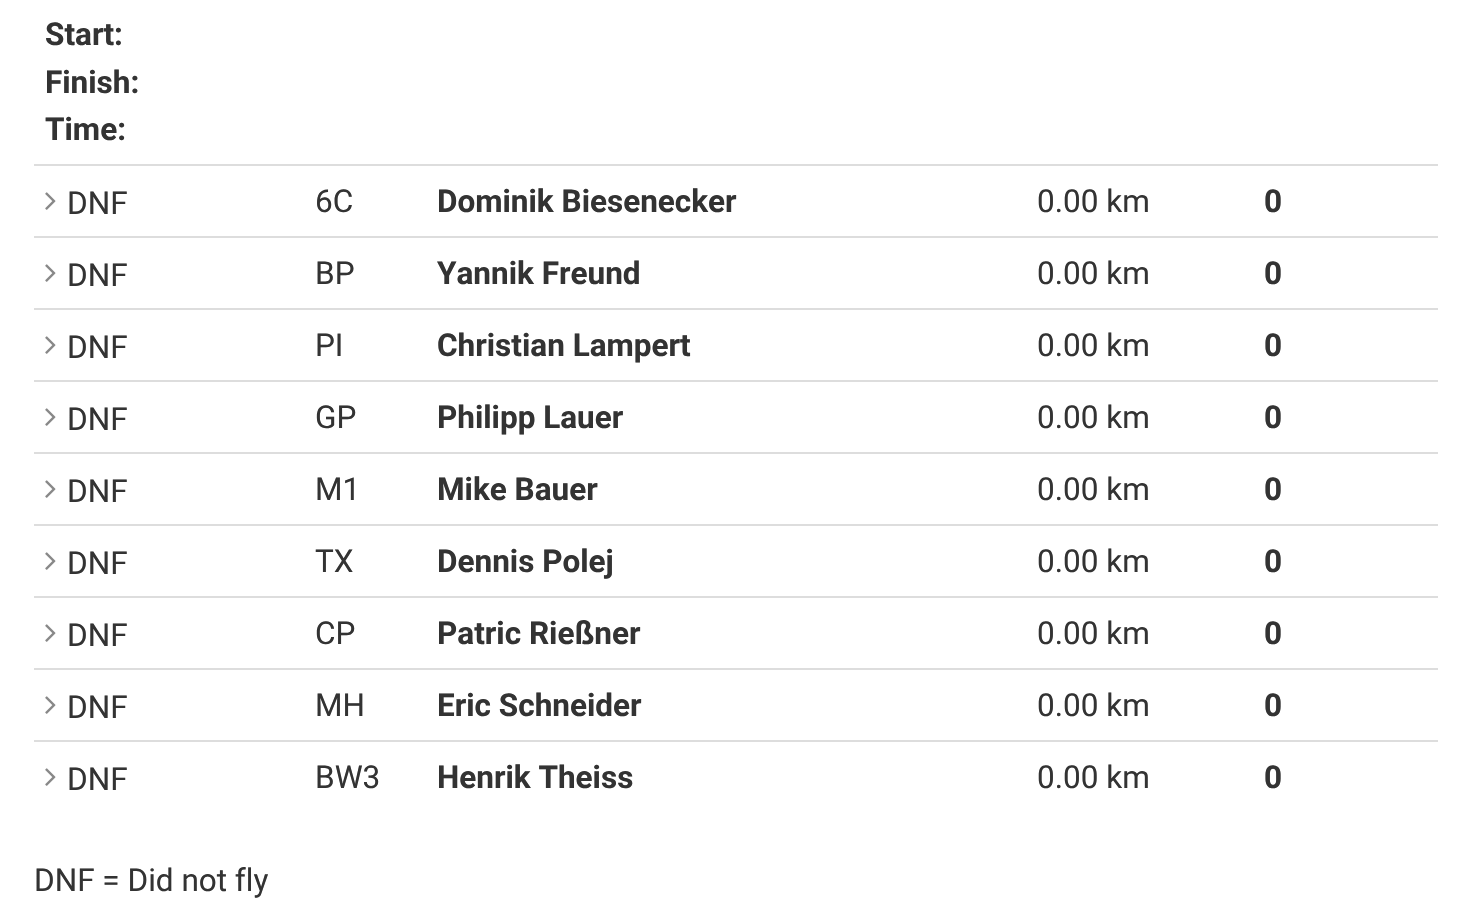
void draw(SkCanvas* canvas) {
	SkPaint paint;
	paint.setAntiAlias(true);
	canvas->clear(0xffffffff);
	SkFont f1(fontMgr->matchFamilyStyle("Roboto", SkFontStyle::Bold()), 31.5);
	f1.setSubpixel(true);
	paint.setColor(0xff333333);
	canvas->drawString("Start:", 45, 45, f1, paint);
	canvas->drawString("Finish:", 45, 93, f1, paint);
	canvas->drawString("Time:", 45, 140, f1, paint);
	paint.setColor(0xffdddddd);
	canvas->drawRect(SkRect::MakeXYWH(34, 164, 1404, 2), paint);
	canvas->drawImageRect(SkImages::DeferredFromEncodedData(SkData::MakeFromFileName("img1.png")), SkRect::MakeXYWH(45, 192, 11, 18), SkSamplingOptions());
	SkFont f2(fontMgr->matchFamilyStyle("Roboto", SkFontStyle::Normal()), 31.5);
	f2.setSubpixel(true);
	paint.setColor(0xff333333);
	canvas->drawString("DNF", 67, 214, f2, paint);
	canvas->drawString("6C", 315, 212, f2, paint);
	canvas->drawString("Dominik Biesenecker", 437, 212, f1, paint);
	canvas->drawString("0.00 km", 1037, 212, f2, paint);
	canvas->drawString("0", 1264, 212, f1, paint);
	paint.setColor(0xffdddddd);
	canvas->drawRect(SkRect::MakeXYWH(34, 236, 1404, 2), paint);
	canvas->drawImageRect(SkImages::DeferredFromEncodedData(SkData::MakeFromFileName("img1.png")), SkRect::MakeXYWH(45, 264, 11, 18), SkSamplingOptions());
	paint.setColor(0xff333333);
	canvas->drawString("DNF", 67, 286, f2, paint);
	canvas->drawString("BP", 315, 284, f2, paint);
	canvas->drawString("Yannik Freund", 437, 284, f1, paint);
	canvas->drawString("0.00 km", 1037, 284, f2, paint);
	canvas->drawString("0", 1264, 284, f1, paint);
	paint.setColor(0xffdddddd);
	canvas->drawRect(SkRect::MakeXYWH(34, 308, 1404, 2), paint);
	canvas->drawImageRect(SkImages::DeferredFromEncodedData(SkData::MakeFromFileName("img1.png")), SkRect::MakeXYWH(45, 336, 11, 18), SkSamplingOptions());
	paint.setColor(0xff333333);
	canvas->drawString("DNF", 67, 358, f2, paint);
	canvas->drawString("PI", 315, 356, f2, paint);
	canvas->drawString("Christian Lampert", 437, 356, f1, paint);
	canvas->drawString("0.00 km", 1037, 356, f2, paint);
	canvas->drawString("0", 1264, 356, f1, paint);
	paint.setColor(0xffdddddd);
	canvas->drawRect(SkRect::MakeXYWH(34, 380, 1404, 2), paint);
	canvas->drawImageRect(SkImages::DeferredFromEncodedData(SkData::MakeFromFileName("img1.png")), SkRect::MakeXYWH(45, 408, 11, 18), SkSamplingOptions());
	paint.setColor(0xff333333);
	canvas->drawString("DNF", 67, 430, f2, paint);
	canvas->drawString("GP", 315, 428, f2, paint);
	canvas->drawString("Philipp Lauer", 437, 428, f1, paint);
	canvas->drawString("0.00 km", 1037, 428, f2, paint);
	canvas->drawString("0", 1264, 428, f1, paint);
	paint.setColor(0xffdddddd);
	canvas->drawRect(SkRect::MakeXYWH(34, 452, 1404, 2), paint);
	canvas->drawImageRect(SkImages::DeferredFromEncodedData(SkData::MakeFromFileName("img1.png")), SkRect::MakeXYWH(45, 480, 11, 18), SkSamplingOptions());
	paint.setColor(0xff333333);
	canvas->drawString("DNF", 67, 502, f2, paint);
	canvas->drawString("M1", 315, 500, f2, paint);
	canvas->drawString("Mike Bauer", 437, 500, f1, paint);
	canvas->drawString("0.00 km", 1037, 500, f2, paint);
	canvas->drawString("0", 1264, 500, f1, paint);
	paint.setColor(0xffdddddd);
	canvas->drawRect(SkRect::MakeXYWH(34, 524, 1404, 2), paint);
	canvas->drawImageRect(SkImages::DeferredFromEncodedData(SkData::MakeFromFileName("img1.png")), SkRect::MakeXYWH(45, 552, 11, 18), SkSamplingOptions());
	paint.setColor(0xff333333);
	canvas->drawString("DNF", 67, 574, f2, paint);
	canvas->drawString("TX", 315, 572, f2, paint);
	canvas->drawString("Dennis Polej", 437, 572, f1, paint);
	canvas->drawString("0.00 km", 1037, 572, f2, paint);
	canvas->drawString("0", 1264, 572, f1, paint);
	paint.setColor(0xffdddddd);
	canvas->drawRect(SkRect::MakeXYWH(34, 596, 1404, 2), paint);
	canvas->drawImageRect(SkImages::DeferredFromEncodedData(SkData::MakeFromFileName("img1.png")), SkRect::MakeXYWH(45, 624, 11, 18), SkSamplingOptions());
	paint.setColor(0xff333333);
	canvas->drawString("DNF", 67, 646, f2, paint);
	canvas->drawString("CP", 315, 644, f2, paint);
	canvas->drawString("Patric Rießner", 437, 644, f1, paint);
	canvas->drawString("0.00 km", 1037, 644, f2, paint);
	canvas->drawString("0", 1264, 644, f1, paint);
	paint.setColor(0xffdddddd);
	canvas->drawRect(SkRect::MakeXYWH(34, 668, 1404, 2), paint);
	canvas->drawImageRect(SkImages::DeferredFromEncodedData(SkData::MakeFromFileName("img1.png")), SkRect::MakeXYWH(45, 696, 11, 18), SkSamplingOptions());
	paint.setColor(0xff333333);
	canvas->drawString("DNF", 67, 718, f2, paint);
	canvas->drawString("MH", 315, 716, f2, paint);
	canvas->drawString("Eric Schneider", 437, 716, f1, paint);
	canvas->drawString("0.00 km", 1037, 716, f2, paint);
	canvas->drawString("0", 1264, 716, f1, paint);
	paint.setColor(0xffdddddd);
	canvas->drawRect(SkRect::MakeXYWH(34, 740, 1404, 2), paint);
	canvas->drawImageRect(SkImages::DeferredFromEncodedData(SkData::MakeFromFileName("img1.png")), SkRect::MakeXYWH(45, 768, 11, 18), SkSamplingOptions());
	paint.setColor(0xff333333);
	canvas->drawString("DNF", 67, 790, f2, paint);
	canvas->drawString("BW3", 315, 788, f2, paint);
	canvas->drawString("Henrik Theiss", 437, 788, f1, paint);
	canvas->drawString("0.00 km", 1037, 788, f2, paint);
	canvas->drawString("0", 1264, 788, f1, paint);
	canvas->drawString("DNF = Did not fly", 34, 891, f2, paint);
}
